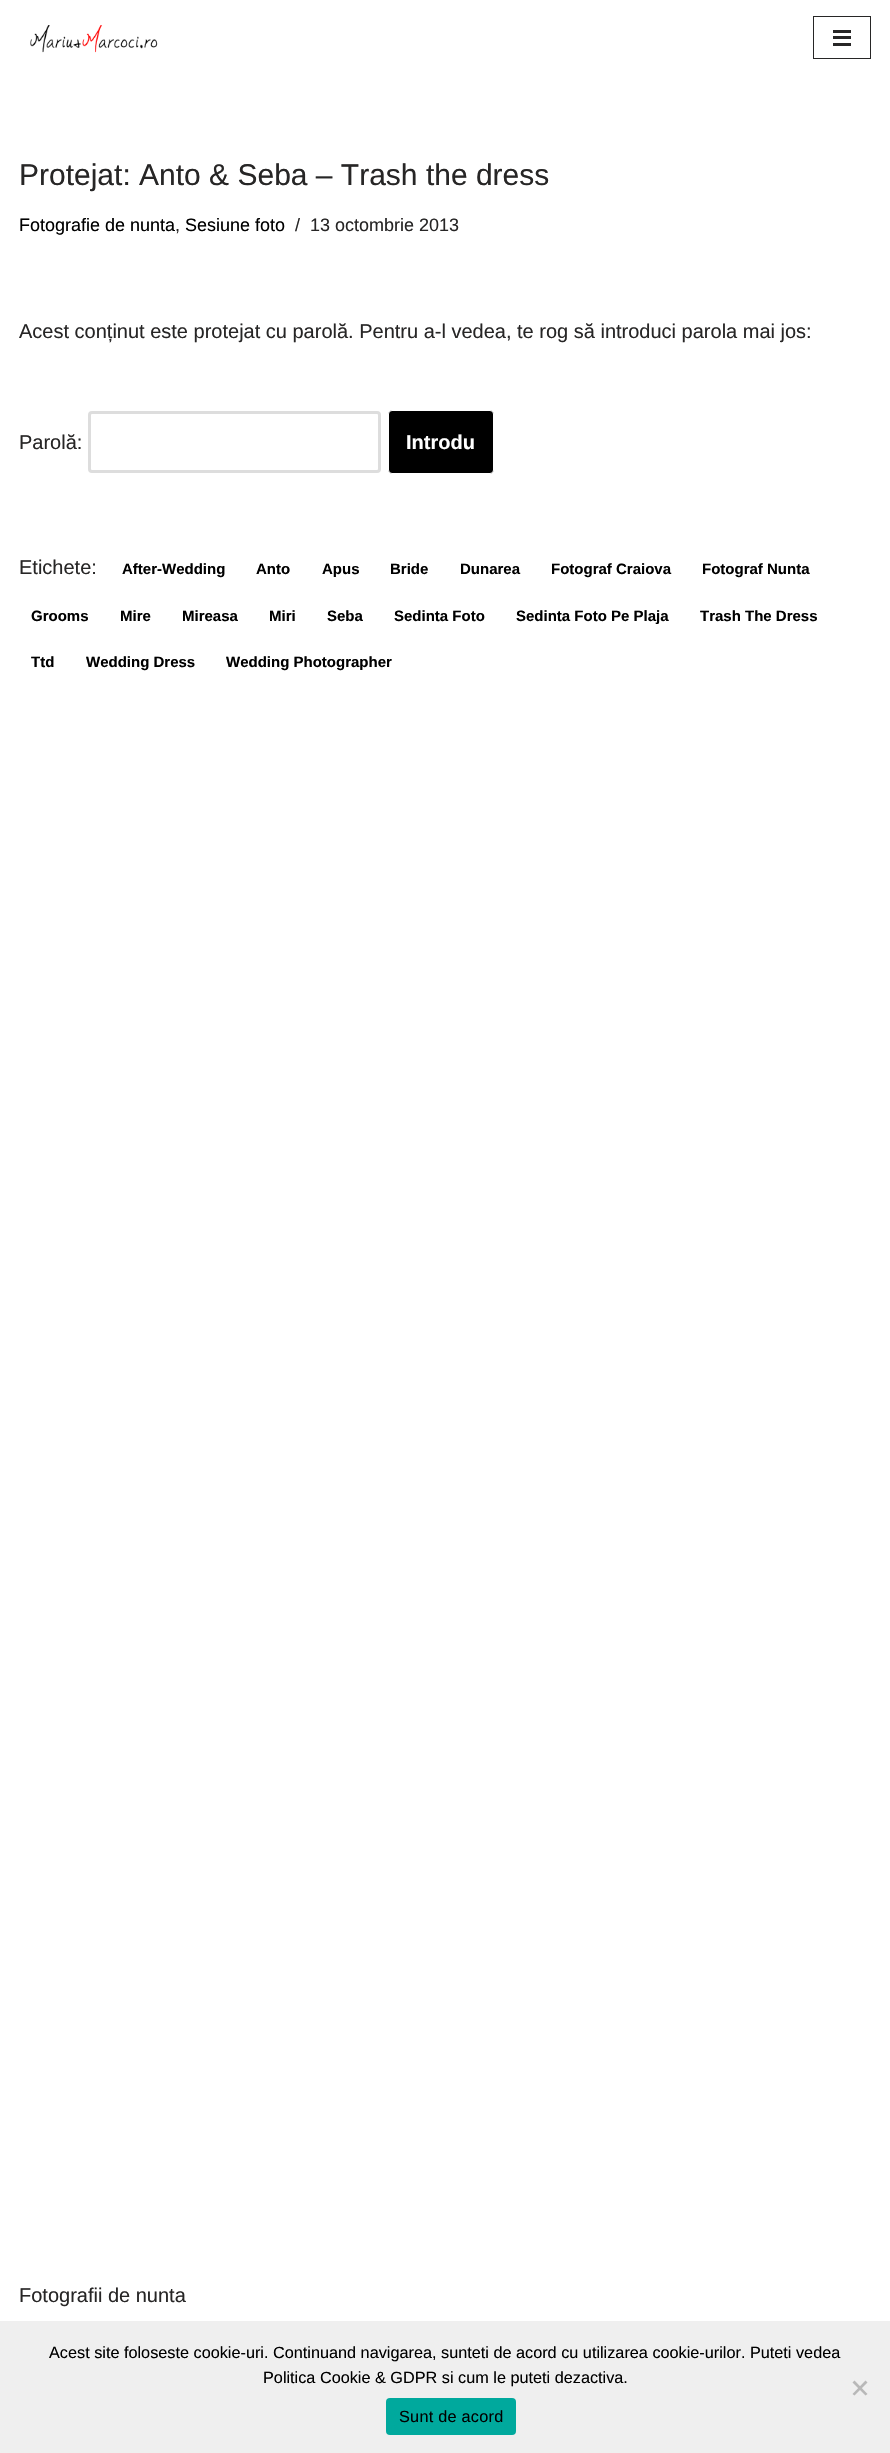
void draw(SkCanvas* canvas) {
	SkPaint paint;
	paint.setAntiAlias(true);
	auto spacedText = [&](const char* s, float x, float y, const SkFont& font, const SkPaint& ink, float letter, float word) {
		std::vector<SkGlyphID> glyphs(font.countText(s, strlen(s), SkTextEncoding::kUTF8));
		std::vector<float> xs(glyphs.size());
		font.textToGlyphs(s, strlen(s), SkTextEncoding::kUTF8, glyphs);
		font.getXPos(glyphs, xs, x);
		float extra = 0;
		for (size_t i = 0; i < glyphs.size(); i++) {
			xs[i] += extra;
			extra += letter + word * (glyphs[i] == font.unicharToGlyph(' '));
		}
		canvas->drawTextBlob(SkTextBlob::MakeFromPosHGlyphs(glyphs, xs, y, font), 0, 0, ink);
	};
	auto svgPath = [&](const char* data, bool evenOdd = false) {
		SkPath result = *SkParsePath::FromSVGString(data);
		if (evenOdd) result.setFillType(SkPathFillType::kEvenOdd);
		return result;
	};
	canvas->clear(0xffffffff);
	canvas->drawImageRect(SkImages::DeferredFromEncodedData(SkData::MakeFromFileName("img1.png")), SkRect::MakeXYWH(30, 25, 128, 28), SkSamplingOptions());
	paint.setStroke(true);
	paint.setStrokeWidth(1);
	paint.setColor(0xff272626);
	canvas->drawRect(SkRect::MakeXYWH(813.5, 16.5, 57, 42), paint);
	paint.setStroke(false);
	canvas->drawRect(SkRect::MakeXYWH(833, 30, 18, 3), paint);
	canvas->drawRect(SkRect::MakeXYWH(833, 36, 18, 3), paint);
	canvas->drawRect(SkRect::MakeXYWH(833, 43, 18, 3), paint);
	SkFont f1(fontMgr->matchFamilyStyle("Liberation Sans", SkFontStyle::Normal()), 30);
	f1.setSubpixel(true);
	canvas->drawString("Protejat: Anto & Seba – Trash the dress", 19, 185, f1, paint);
	SkFont f2(fontMgr->matchFamilyStyle("Liberation Sans", SkFontStyle::Normal()), 18);
	f2.setSubpixel(true);
	paint.setColor(0xff000000);
	canvas->drawString("Fotografie de nunta", 19, 231, f2, paint);
	paint.setColor(0xff272626);
	canvas->drawString(",", 175, 231, f2, paint);
	paint.setColor(0xff000000);
	canvas->drawString("Sesiune foto", 185, 231, f2, paint);
	paint.setColor(0xff272626);
	canvas->drawString("/", 295, 231, f2, paint);
	canvas->drawString("13 octombrie 2013", 310, 231, f2, paint);
	SkFont f3(fontMgr->matchFamilyStyle("Liberation Sans", SkFontStyle::Normal()), 20);
	f3.setSubpixel(true);
	canvas->drawString("Acest conținut este protejat cu parolă. Pentru a-l vedea, te rog să introduci parola mai jos:", 19, 338, f3, paint);
	canvas->drawString("Parolă:", 19, 449, f3, paint);
	paint.setStroke(true);
	paint.setStrokeWidth(3);
	paint.setColor(0xffdddddd);
	canvas->drawRoundRect(SkRect::MakeXYWH(89.5, 412.5, 290, 59), 2.5, 2.5, paint);
	paint.setStroke(false);
	paint.setColor(0xff000000);
	canvas->drawRoundRect(SkRect::MakeXYWH(388.5, 410.5, 105, 63), 3.5, 3.5, paint);
	paint.setStroke(true);
	paint.setStrokeWidth(1);
	paint.setColor(0xffffffff);
	canvas->drawRoundRect(SkRect::MakeXYWH(388.5, 410.5, 105, 63), 3.5, 3.5, paint);
	SkFont f4(fontMgr->matchFamilyStyle("Liberation Sans", SkFontStyle::Bold()), 20);
	f4.setSubpixel(true);
	paint.setStroke(false);
	canvas->drawString("Introdu", 406, 449, f4, paint);
	paint.setColor(0xff272626);
	canvas->drawString("Etichete:", 19, 574, f3, paint);
	SkFont f5(fontMgr->matchFamilyStyle("Liberation Sans", SkFontStyle::Bold()), 15);
	f5.setSubpixel(true);
	paint.setColor(0xff000000);
	canvas->drawString("After-Wedding", 122, 574, f5, paint);
	canvas->drawString("Anto", 256, 574, f5, paint);
	canvas->drawString("Apus", 322, 574, f5, paint);
	canvas->drawString("Bride", 390, 574, f5, paint);
	canvas->drawString("Dunarea", 460, 574, f5, paint);
	canvas->drawString("Fotograf Craiova", 551, 574, f5, paint);
	canvas->drawString("Fotograf Nunta", 702, 574, f5, paint);
	canvas->drawString("Grooms", 31, 621, f5, paint);
	canvas->drawString("Mire", 120, 621, f5, paint);
	canvas->drawString("Mireasa", 182, 621, f5, paint);
	canvas->drawString("Miri", 269, 621, f5, paint);
	canvas->drawString("Seba", 327, 621, f5, paint);
	canvas->drawString("Sedinta Foto", 394, 621, f5, paint);
	canvas->drawString("Sedinta Foto Pe Plaja", 516, 621, f5, paint);
	canvas->drawString("Trash The Dress", 700, 621, f5, paint);
	canvas->drawString("Ttd", 31, 667, f5, paint);
	canvas->drawString("Wedding Dress", 86, 667, f5, paint);
	canvas->drawString("Wedding Photographer", 226, 667, f5, paint);
	paint.setColor(0xff272626);
	canvas->drawString("Fotografii de nunta", 19, 2302, f3, paint);
	paint.setColor(0xffefefef);
	canvas->drawRect(SkRect::MakeXYWH(0, 2321, 890, 132), paint);
	SkFont f6(fontMgr->matchFamilyStyle("Liberation Sans", SkFontStyle::Normal()), 16.25);
	f6.setSubpixel(true);
	paint.setColor(0xff000000);
	canvas->drawString("Acest site foloseste cookie-uri. Continuand navigarea, sunteti de acord cu utilizarea cookie-urilor. Puteti vedea", 49, 2358, f6, paint);
	canvas->drawString("Politica Cookie & GDPR si cum le puteti dezactiva.", 263, 2383, f6, paint);
	paint.setColor(0xffb8b8b8);
	canvas->drawPath(svgPath("M865.5 2380.5L867.5 2382.5L854.5 2395.5L852.5 2394Z"), paint);
	canvas->drawPath(svgPath("M852.5 2382.5L854.5 2380.5L867.5 2394L865.5 2395.5Z"), paint);
	paint.setColor(0xff00a99d);
	canvas->drawRoundRect(SkRect::MakeXYWH(386, 2398, 130, 37), 4, 4, paint);
	paint.setColor(0xff000000);
	spacedText("Sunt de acord", 399, 2422, f6, paint, 0.25, 0);
}
